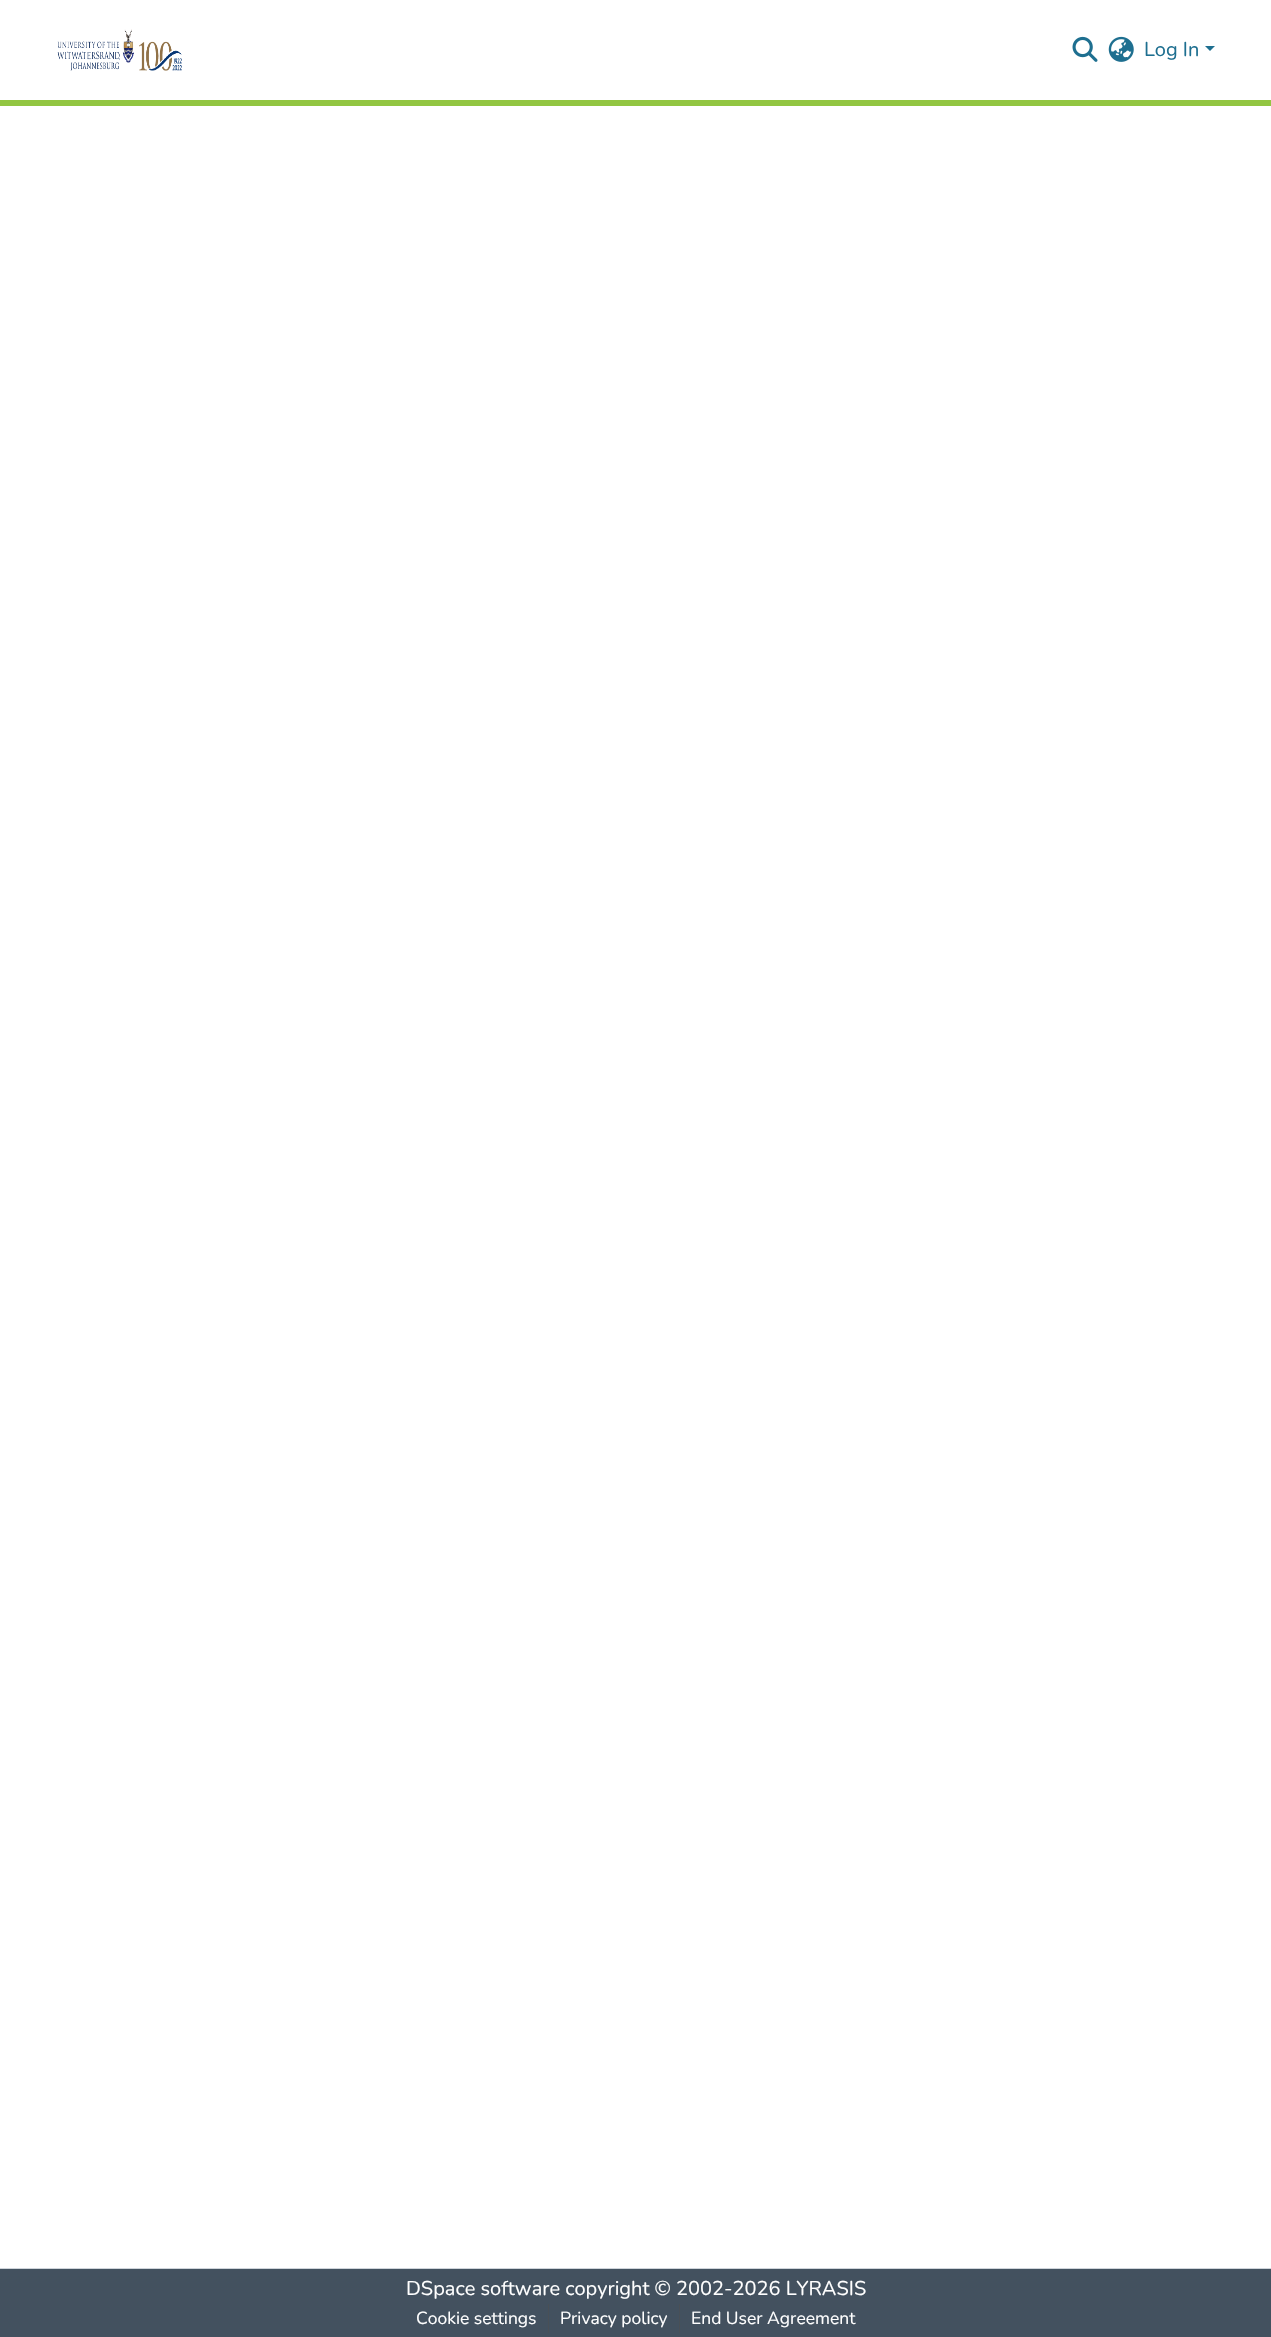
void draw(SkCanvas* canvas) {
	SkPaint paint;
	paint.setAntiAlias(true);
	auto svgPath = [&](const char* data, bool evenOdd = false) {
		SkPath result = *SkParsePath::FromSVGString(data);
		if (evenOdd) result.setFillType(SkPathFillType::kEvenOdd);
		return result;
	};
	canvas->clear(0xffffffff);
	paint.setColor(0xff92c642);
	canvas->drawRect(SkRect::MakeXYWH(0, 100, 1271, 6), paint);
	canvas->drawImageRect(SkImages::DeferredFromEncodedData(SkData::MakeFromFileName("img1.png")), SkRect::MakeXYWH(57, 29, 125, 42), SkSamplingOptions());
	canvas->drawImageRect(SkImages::DeferredFromEncodedData(SkData::MakeFromFileName("img2.png")), SkRect::MakeXYWH(1072, 36, 26, 26), SkSamplingOptions());
	canvas->drawImageRect(SkImages::DeferredFromEncodedData(SkData::MakeFromFileName("img3.png")), SkRect::MakeXYWH(1108, 36, 26, 26), SkSamplingOptions());
	SkFont f1(fontMgr->matchFamilyStyle("Nunito", SkFontStyle::Normal()), 20);
	f1.setSubpixel(true);
	paint.setColor(0xff1e6f90);
	canvas->drawString("Log In", 1144, 56, f1, paint);
	canvas->drawPath(svgPath("M1205 46H1215L1210 51Z"), paint);
	paint.setColor(0xff43515f);
	canvas->drawRect(SkRect::MakeXYWH(0, 2269, 1271, 68), paint);
	paint.setColor(0xffced4da);
	canvas->drawRect(SkRect::MakeXYWH(0, 2268, 1271, 1), paint);
	paint.setColor(0xffffffff);
	canvas->drawString("DSpace software copyright © 2002-2026 LYRASIS", 406, 2295, f1, paint);
	SkFont f2(fontMgr->matchFamilyStyle("Nunito", SkFontStyle::Normal()), 17.5);
	f2.setSubpixel(true);
	canvas->drawString("Cookie settings", 416, 2324, f2, paint);
	paint.setColor(0xff495057);
	canvas->drawRect(SkRect::MakeXYWH(548, 2304, 1, 29), paint);
	paint.setColor(0xffffffff);
	canvas->drawString("Privacy policy", 560, 2324, f2, paint);
	paint.setColor(0xff495057);
	canvas->drawRect(SkRect::MakeXYWH(679, 2304, 1, 29), paint);
	paint.setColor(0xffffffff);
	canvas->drawString("End User Agreement", 691, 2324, f2, paint);
}
